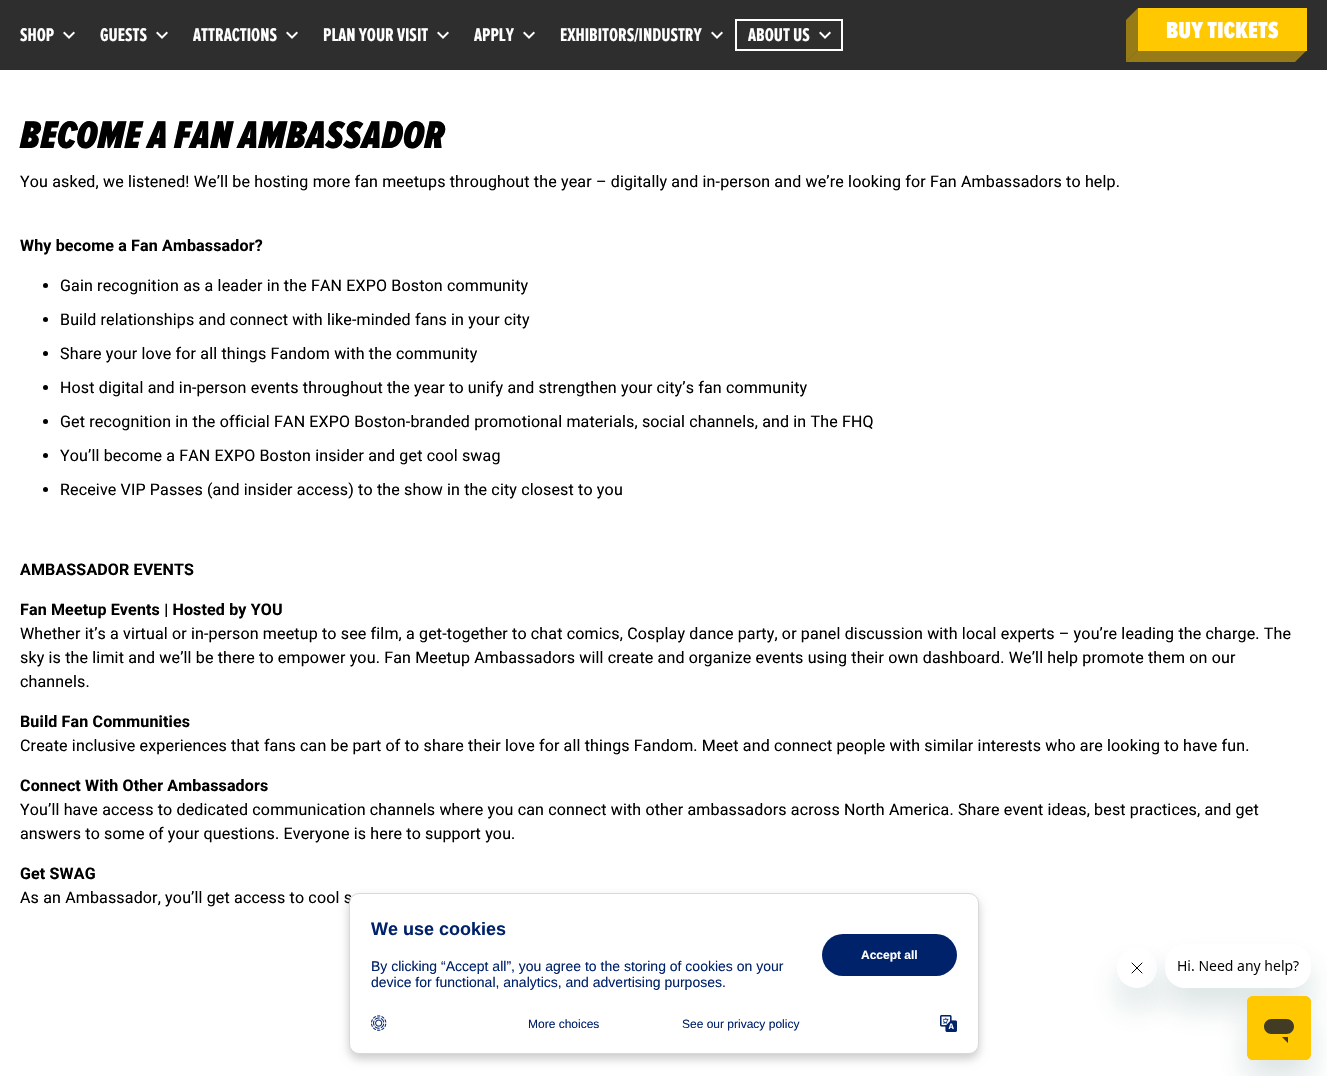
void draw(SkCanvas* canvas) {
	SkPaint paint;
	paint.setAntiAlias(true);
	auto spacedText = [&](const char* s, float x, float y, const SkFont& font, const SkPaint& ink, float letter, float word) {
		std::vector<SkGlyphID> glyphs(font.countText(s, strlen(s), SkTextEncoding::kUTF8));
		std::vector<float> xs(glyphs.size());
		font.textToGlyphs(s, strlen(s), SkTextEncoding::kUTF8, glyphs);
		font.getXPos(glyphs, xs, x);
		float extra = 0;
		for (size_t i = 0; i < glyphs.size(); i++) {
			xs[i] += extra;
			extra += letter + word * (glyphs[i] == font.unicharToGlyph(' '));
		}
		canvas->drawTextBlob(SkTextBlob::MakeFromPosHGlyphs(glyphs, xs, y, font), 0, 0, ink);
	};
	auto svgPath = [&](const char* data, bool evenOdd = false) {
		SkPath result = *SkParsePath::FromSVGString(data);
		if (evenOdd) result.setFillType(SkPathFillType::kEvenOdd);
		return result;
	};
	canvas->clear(0xffffffff);
	paint.setColor(0xff2e2e2e);
	canvas->drawRect(SkRect::MakeXYWH(0, 0, 1327, 70), paint);
	SkFont f1(fontMgr->matchFamilyStyle("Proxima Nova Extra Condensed", SkFontStyle::Bold()), 19);
	f1.setSubpixel(true);
	paint.setColor(0xffffffff);
	canvas->drawString("SHOP", 20, 41, f1, paint);
	canvas->drawImageRect(SkImages::DeferredFromEncodedData(SkData::MakeFromFileName("img1.png")), SkRect::MakeXYWH(63, 31, 12, 8), SkSamplingOptions());
	canvas->drawString("GUESTS", 100, 41, f1, paint);
	canvas->drawImageRect(SkImages::DeferredFromEncodedData(SkData::MakeFromFileName("img1.png")), SkRect::MakeXYWH(156, 31, 12, 8), SkSamplingOptions());
	canvas->drawString("ATTRACTIONS", 193, 41, f1, paint);
	canvas->drawImageRect(SkImages::DeferredFromEncodedData(SkData::MakeFromFileName("img1.png")), SkRect::MakeXYWH(286, 31, 12, 8), SkSamplingOptions());
	canvas->drawString("PLAN YOUR VISIT", 323, 41, f1, paint);
	canvas->drawImageRect(SkImages::DeferredFromEncodedData(SkData::MakeFromFileName("img1.png")), SkRect::MakeXYWH(437, 31, 12, 8), SkSamplingOptions());
	canvas->drawString("APPLY", 474, 41, f1, paint);
	canvas->drawImageRect(SkImages::DeferredFromEncodedData(SkData::MakeFromFileName("img1.png")), SkRect::MakeXYWH(523, 31, 12, 8), SkSamplingOptions());
	canvas->drawString("EXHIBITORS/INDUSTRY", 560, 41, f1, paint);
	canvas->drawImageRect(SkImages::DeferredFromEncodedData(SkData::MakeFromFileName("img1.png")), SkRect::MakeXYWH(711, 31, 12, 8), SkSamplingOptions());
	paint.setStroke(true);
	paint.setStrokeWidth(2);
	canvas->drawRect(SkRect::MakeXYWH(736, 20, 106, 30), paint);
	paint.setStroke(false);
	canvas->drawString("ABOUT US", 748, 41, f1, paint);
	canvas->drawImageRect(SkImages::DeferredFromEncodedData(SkData::MakeFromFileName("img1.png")), SkRect::MakeXYWH(819, 31, 12, 8), SkSamplingOptions());
	paint.setColor(0xffffc800);
	canvas->drawRect(SkRect::MakeXYWH(1138, 8, 169, 43), paint);
	paint.setColor(0x80ffc800);
	canvas->drawPath(svgPath("M1126 20L1138 8V50L1126 62Z"), paint);
	SkFont f2(fontMgr->matchFamilyStyle("Proxima Nova Extra Condensed", SkFontStyle(900, SkFontStyle::kNormal_Width, SkFontStyle::kUpright_Slant)), 24);
	f2.setSubpixel(true);
	paint.setColor(0xffffffff);
	spacedText("BUY TICKETS", 1166, 38, f2, paint, 0.25, 0);
	paint.setColor(0x80ffc800);
	canvas->drawPath(svgPath("M1138 50H1307L1295 62H1126Z"), paint);
	SkFont f3(fontMgr->matchFamilyStyle("Proxima Nova Extra Condensed", SkFontStyle(900, SkFontStyle::kNormal_Width, SkFontStyle::kItalic_Slant)), 40);
	f3.setSubpixel(true);
	paint.setColor(0xff000000);
	spacedText("BECOME A FAN AMBASSADOR", 20, 148, f3, paint, 0.4, 0);
	SkFont f4(fontMgr->matchFamilyStyle("Roboto", SkFontStyle::Normal()), 16);
	f4.setSubpixel(true);
	spacedText("You asked, we listened! We’ll be hosting more fan meetups throughout the year – digitally and in-person and we’re looking for Fan Ambassadors to help.", 20, 187, f4, paint, 0.16, 0);
	SkFont f5(fontMgr->matchFamilyStyle("Roboto", SkFontStyle::Bold()), 16);
	f5.setSubpixel(true);
	spacedText("Why become a Fan Ambassador?", 20, 251, f5, paint, 0.16, 0);
	canvas->drawCircle(45.5, 285.5, 2.5, paint);
	spacedText("Gain recognition as a leader in the FAN EXPO Boston community", 60, 291, f4, paint, 0.16, 0);
	canvas->drawCircle(45.5, 319.5, 2.5, paint);
	spacedText("Build relationships and connect with like-minded fans in your city", 60, 325, f4, paint, 0.16, 0);
	canvas->drawCircle(45.5, 353.5, 2.5, paint);
	spacedText("Share your love for all things Fandom with the community", 60, 359, f4, paint, 0.16, 0);
	canvas->drawCircle(45.5, 387.5, 2.5, paint);
	spacedText("Host digital and in-person events throughout the year to unify and strengthen your city’s fan community", 60, 393, f4, paint, 0.16, 0);
	canvas->drawCircle(45.5, 421.5, 2.5, paint);
	spacedText("Get recognition in the official FAN EXPO Boston-branded promotional materials, social channels, and in The FHQ", 60, 427, f4, paint, 0.16, 0);
	canvas->drawCircle(45.5, 455.5, 2.5, paint);
	spacedText("You’ll become a FAN EXPO Boston insider and get cool swag", 60, 461, f4, paint, 0.16, 0);
	canvas->drawCircle(45.5, 489.5, 2.5, paint);
	spacedText("Receive VIP Passes (and insider access) to the show in the city closest to you", 60, 495, f4, paint, 0.16, 0);
	spacedText("AMBASSADOR EVENTS", 20, 575, f5, paint, 0.16, 0);
	spacedText("Fan Meetup Events | Hosted by YOU", 20, 615, f5, paint, 0.16, 0);
	spacedText("Whether it’s a virtual or in-person meetup to see film, a get-together to chat comics, Cosplay dance party, or panel discussion with local experts – you’re leading the charge. The", 20, 639, f4, paint, 0.16, 0);
	spacedText("sky is the limit and we’ll be there to empower you. Fan Meetup Ambassadors will create and organize events using their own dashboard. We’ll help promote them on our", 20, 663, f4, paint, 0.16, 0);
	spacedText("channels.", 20, 687, f4, paint, 0.16, 0);
	spacedText("Build Fan Communities", 20, 727, f5, paint, 0.16, 0);
	spacedText("Create inclusive experiences that fans can be part of to share their love for all things Fandom. Meet and connect people with similar interests who are looking to have fun.", 20, 751, f4, paint, 0.16, 0);
	spacedText("Connect With Other Ambassadors", 20, 791, f5, paint, 0.16, 0);
	spacedText("You’ll have access to dedicated communication channels where you can connect with other ambassadors across North America. Share event ideas, best practices, and get", 20, 815, f4, paint, 0.16, 0);
	spacedText("answers to some of your questions. Everyone is here to support you.", 20, 839, f4, paint, 0.16, 0);
	spacedText("Get SWAG", 20, 879, f5, paint, 0.16, 0);
	spacedText("As an Ambassador, you’ll get access to cool s", 20, 903, f4, paint, 0.16, 0);
	canvas->save();
	canvas->clipPath(svgPath("M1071 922H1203V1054H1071ZM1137 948C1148 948 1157 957 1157 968C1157 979 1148 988 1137 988C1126 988 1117 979 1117 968C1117 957 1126 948 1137 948Z", true), true);
	paint.setColor(0x2617494d);
	paint.setMaskFilter(SkMaskFilter::MakeBlur(kNormal_SkBlurStyle, 15));
	canvas->drawRoundRect(SkRect::MakeXYWH(1117, 968, 40, 40), 20, 20, paint);
	paint.setMaskFilter(nullptr);
	canvas->restore();
	canvas->drawImageRect(SkImages::DeferredFromEncodedData(SkData::MakeFromFileName("img3.png")), SkRect::MakeXYWH(1131, 962, 12, 12), SkSamplingOptions());
	canvas->save();
	canvas->clipPath(svgPath("M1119 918H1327V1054H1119ZM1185 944H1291C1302 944 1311 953 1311 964V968C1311 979 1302 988 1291 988H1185C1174 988 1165 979 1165 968V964C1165 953 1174 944 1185 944Z", true), true);
	paint.setMaskFilter(SkMaskFilter::MakeBlur(kNormal_SkBlurStyle, 15));
	canvas->drawRoundRect(SkRect::MakeXYWH(1165, 964, 146, 44), 20, 20, paint);
	paint.setMaskFilter(nullptr);
	canvas->restore();
	canvas->drawImageRect(SkImages::DeferredFromEncodedData(SkData::MakeFromFileName("img2.png")), SkRect::MakeXYWH(1166, 960, 139, 28), SkSamplingOptions());
	paint.setMaskFilter(SkMaskFilter::MakeBlur(kNormal_SkBlurStyle, 15));
	canvas->drawRoundRect(SkRect::MakeXYWH(1247, 1016, 64, 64), 6, 6, paint);
	paint.setMaskFilter(nullptr);
	canvas->drawImageRect(SkImages::DeferredFromEncodedData(SkData::MakeFromFileName("img4.png")), SkRect::MakeXYWH(1247, 996, 64, 64), SkSamplingOptions());
	paint.setColor(0x33000000);
	paint.setMaskFilter(SkMaskFilter::MakeBlur(kNormal_SkBlurStyle, 5));
	canvas->drawRoundRect(SkRect::MakeXYWH(349, 898, 630, 161), 10, 10, paint);
	paint.setMaskFilter(nullptr);
	paint.setColor(0xffffffff);
	canvas->drawRoundRect(SkRect::MakeXYWH(349.5, 893.5, 629, 160), 9.5, 9.5, paint);
	paint.setStroke(true);
	paint.setStrokeWidth(1);
	paint.setColor(0xffd8d8d8);
	canvas->drawRoundRect(SkRect::MakeXYWH(349.5, 893.5, 629, 160), 9.5, 9.5, paint);
	SkFont f6(fontMgr->matchFamilyStyle("Liberation Sans", SkFontStyle::Bold()), 18);
	f6.setSubpixel(true);
	paint.setStroke(false);
	paint.setColor(0xff00226a);
	canvas->drawString("We use cookies", 371, 935, f6, paint);
	SkFont f7(fontMgr->matchFamilyStyle("Liberation Sans", SkFontStyle::Normal()), 14);
	f7.setSubpixel(true);
	canvas->drawString("By clicking “Accept all”, you agree to the storing of cookies on your", 371, 971, f7, paint);
	canvas->drawString("device for functional, analytics, and advertising purposes.", 371, 987, f7, paint);
	canvas->drawRoundRect(SkRect::MakeXYWH(822, 934, 135, 42), 21, 21, paint);
	SkFont f8(fontMgr->matchFamilyStyle("Liberation Sans", SkFontStyle::Bold()), 12);
	f8.setSubpixel(true);
	paint.setColor(0xffffffff);
	canvas->drawString("Accept all", 861, 959, f8, paint);
	canvas->drawImageRect(SkImages::DeferredFromEncodedData(SkData::MakeFromFileName("img5.png")), SkRect::MakeXYWH(371, 1015, 16, 16), SkSamplingOptions());
	SkFont f9(fontMgr->matchFamilyStyle("Liberation Sans", SkFontStyle::Normal()), 12);
	f9.setSubpixel(true);
	paint.setColor(0xff00226a);
	canvas->drawString("More choices", 528, 1028, f9, paint);
	canvas->drawString("See our privacy policy", 682, 1028, f9, paint);
	canvas->drawImageRect(SkImages::DeferredFromEncodedData(SkData::MakeFromFileName("img6.png")), SkRect::MakeXYWH(940, 1015, 17, 17), SkSamplingOptions());
}
